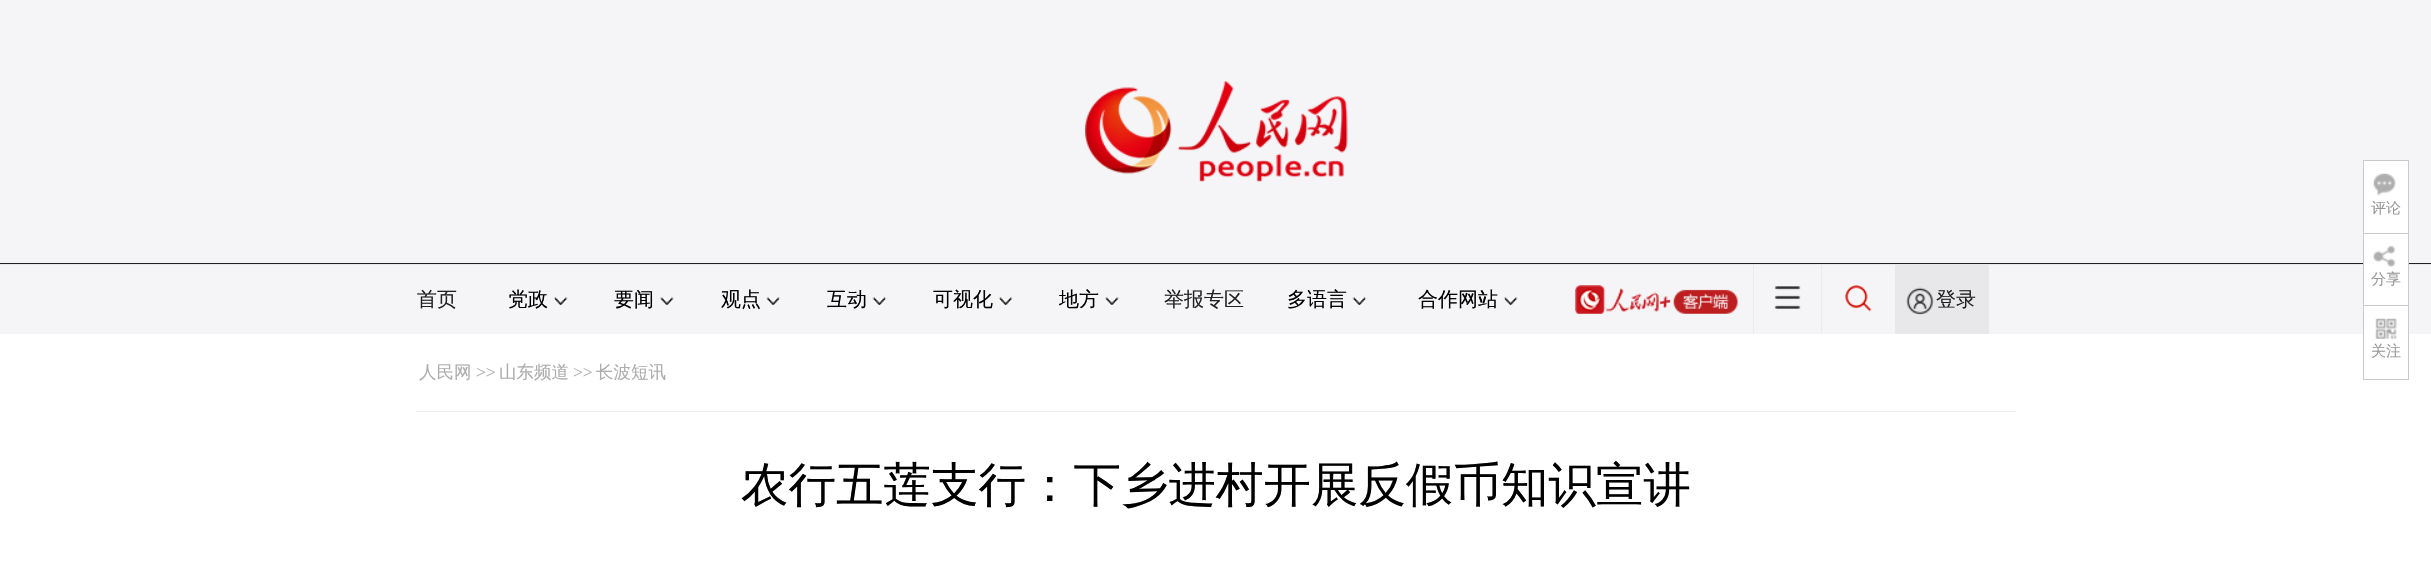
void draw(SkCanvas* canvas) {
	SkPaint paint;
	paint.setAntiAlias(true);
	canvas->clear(0xffffffff);
	paint.setColor(0xfff5f5f7);
	canvas->drawRect(SkRect::MakeXYWH(0, 0, 2431, 263), paint);
	paint.setColor(0xff212121);
	canvas->drawRect(SkRect::MakeXYWH(0, 263, 2431, 1), paint);
	canvas->drawImageRect(SkImages::DeferredFromEncodedData(SkData::MakeFromFileName("img1.png")), SkRect::MakeXYWH(1085, 81, 263, 101), SkSamplingOptions());
	paint.setColor(0xffffffff);
	canvas->drawRect(SkRect::MakeXYWH(2364, 161, 44, 72), paint);
	paint.setStroke(true);
	paint.setStrokeWidth(1);
	paint.setColor(0xffc9c9c9);
	canvas->drawRect(SkRect::MakeXYWH(2363.5, 160.5, 45, 75), paint);
	canvas->drawImageRect(SkImages::DeferredFromEncodedData(SkData::MakeFromFileName("img2.png")), SkRect::MakeXYWH(2373, 173, 23, 23), SkSamplingOptions());
	SkFont f1(fontMgr->matchFamilyStyle("WenQuanYi Zen Hei", SkFontStyle(500, SkFontStyle::kNormal_Width, SkFontStyle::kUpright_Slant)), 15);
	f1.setSubpixel(true);
	paint.setStroke(false);
	paint.setColor(0xff999999);
	canvas->drawString("评论", 2371, 213, f1, paint);
	paint.setColor(0xffe9e9e9);
	canvas->drawRect(SkRect::MakeXYWH(0, 264, 2431, 1), paint);
	paint.setColor(0xfff5f5f7);
	canvas->drawRect(SkRect::MakeXYWH(0, 265, 2431, 69), paint);
	paint.setColor(0xffffffff);
	canvas->drawRect(SkRect::MakeXYWH(2364, 234, 44, 71), paint);
	paint.setStroke(true);
	paint.setColor(0xffc9c9c9);
	canvas->drawRect(SkRect::MakeXYWH(2363.5, 233.5, 45, 74), paint);
	canvas->drawImageRect(SkImages::DeferredFromEncodedData(SkData::MakeFromFileName("img3.png")), SkRect::MakeXYWH(2373, 245, 23, 22), SkSamplingOptions());
	paint.setStroke(false);
	paint.setColor(0xff999999);
	canvas->drawString("分享", 2371, 284, f1, paint);
	paint.setColor(0xffffffff);
	canvas->drawRect(SkRect::MakeXYWH(2364, 306, 44, 28), paint);
	paint.setStroke(true);
	paint.setColor(0xffc9c9c9);
	canvas->drawRect(SkRect::MakeXYWH(2363.5, 305.5, 45, 74), paint);
	canvas->drawImageRect(SkImages::DeferredFromEncodedData(SkData::MakeFromFileName("img4.png")), SkRect::MakeXYWH(2375, 318, 22, 21), SkSamplingOptions());
	paint.setStroke(false);
	paint.setColor(0xff999999);
	canvas->drawString("关注", 2371, 356, f1, paint);
	SkFont f2(fontMgr->matchFamilyStyle("WenQuanYi Zen Hei", SkFontStyle(500, SkFontStyle::kNormal_Width, SkFontStyle::kUpright_Slant)), 20);
	f2.setSubpixel(true);
	paint.setColor(0xff212121);
	canvas->drawString("首页", 417, 306, f2, paint);
	paint.setColor(0xff000000);
	canvas->drawString("党政", 508, 306, f2, paint);
	canvas->drawImageRect(SkImages::DeferredFromEncodedData(SkData::MakeFromFileName("img5.png")), SkRect::MakeXYWH(553, 297, 15, 8), SkSamplingOptions());
	canvas->drawString("要闻", 614, 306, f2, paint);
	canvas->drawImageRect(SkImages::DeferredFromEncodedData(SkData::MakeFromFileName("img6.png")), SkRect::MakeXYWH(660, 297, 14, 8), SkSamplingOptions());
	canvas->drawString("观点", 721, 306, f2, paint);
	canvas->drawImageRect(SkImages::DeferredFromEncodedData(SkData::MakeFromFileName("img7.png")), SkRect::MakeXYWH(766, 297, 14, 8), SkSamplingOptions());
	canvas->drawString("互动", 827, 306, f2, paint);
	canvas->drawImageRect(SkImages::DeferredFromEncodedData(SkData::MakeFromFileName("img8.png")), SkRect::MakeXYWH(872, 297, 15, 8), SkSamplingOptions());
	canvas->drawString("可视化", 933, 306, f2, paint);
	canvas->drawImageRect(SkImages::DeferredFromEncodedData(SkData::MakeFromFileName("img5.png")), SkRect::MakeXYWH(998, 297, 15, 8), SkSamplingOptions());
	canvas->drawString("地方", 1059, 306, f2, paint);
	canvas->drawImageRect(SkImages::DeferredFromEncodedData(SkData::MakeFromFileName("img9.png")), SkRect::MakeXYWH(1105, 297, 14, 8), SkSamplingOptions());
	paint.setColor(0xff212121);
	canvas->drawString("举报专区", 1164, 306, f2, paint);
	paint.setColor(0xff000000);
	canvas->drawString("多语言", 1287, 306, f2, paint);
	canvas->drawImageRect(SkImages::DeferredFromEncodedData(SkData::MakeFromFileName("img8.png")), SkRect::MakeXYWH(1352, 297, 15, 8), SkSamplingOptions());
	canvas->drawString("合作网站", 1418, 306, f2, paint);
	canvas->drawImageRect(SkImages::DeferredFromEncodedData(SkData::MakeFromFileName("img10.png")), SkRect::MakeXYWH(1503, 297, 15, 8), SkSamplingOptions());
	canvas->drawImageRect(SkImages::DeferredFromEncodedData(SkData::MakeFromFileName("img11.png")), SkRect::MakeXYWH(1575, 285, 163, 29), SkSamplingOptions());
	paint.setColor(0xffebebed);
	canvas->drawRect(SkRect::MakeXYWH(1821, 265, 1, 69), paint);
	canvas->drawRect(SkRect::MakeXYWH(1753, 265, 1, 69), paint);
	canvas->drawImageRect(SkImages::DeferredFromEncodedData(SkData::MakeFromFileName("img12.png")), SkRect::MakeXYWH(1774, 286, 27, 23), SkSamplingOptions());
	canvas->drawImageRect(SkImages::DeferredFromEncodedData(SkData::MakeFromFileName("img13.png")), SkRect::MakeXYWH(1845, 285, 27, 27), SkSamplingOptions());
	paint.setColor(0xffe8e8ea);
	canvas->drawRect(SkRect::MakeXYWH(1895, 265, 94, 69), paint);
	canvas->drawImageRect(SkImages::DeferredFromEncodedData(SkData::MakeFromFileName("img14.png")), SkRect::MakeXYWH(1906, 287, 28, 28), SkSamplingOptions());
	paint.setColor(0xff212121);
	canvas->drawString("登录", 1936, 306, f2, paint);
	paint.setColor(0xffececec);
	canvas->drawRect(SkRect::MakeXYWH(416, 411, 1600, 1), paint);
	SkFont f3(fontMgr->matchFamilyStyle("WenQuanYi Zen Hei", SkFontStyle(500, SkFontStyle::kNormal_Width, SkFontStyle::kUpright_Slant)), 17.5);
	f3.setSubpixel(true);
	paint.setColor(0xffadadad);
	canvas->drawString("人民网", 419, 378, f3, paint);
	SkFont f4(fontMgr->matchFamilyStyle("Liberation Serif", SkFontStyle::Normal()), 17.5);
	f4.setSubpixel(true);
	canvas->drawString(">>", 476, 378, f4, paint);
	canvas->drawString("山东频道", 499, 378, f3, paint);
	canvas->drawString(">>", 573, 378, f4, paint);
	canvas->drawString("长波短讯", 596, 378, f3, paint);
	SkFont f5(fontMgr->matchFamilyStyle("WenQuanYi Zen Hei", SkFontStyle(500, SkFontStyle::kNormal_Width, SkFontStyle::kUpright_Slant)), 47.5);
	f5.setSubpixel(true);
	paint.setColor(0xff000000);
	canvas->drawString("农行五莲支行：下乡进村开展反假币知识宣讲", 741, 501, f5, paint);
}
